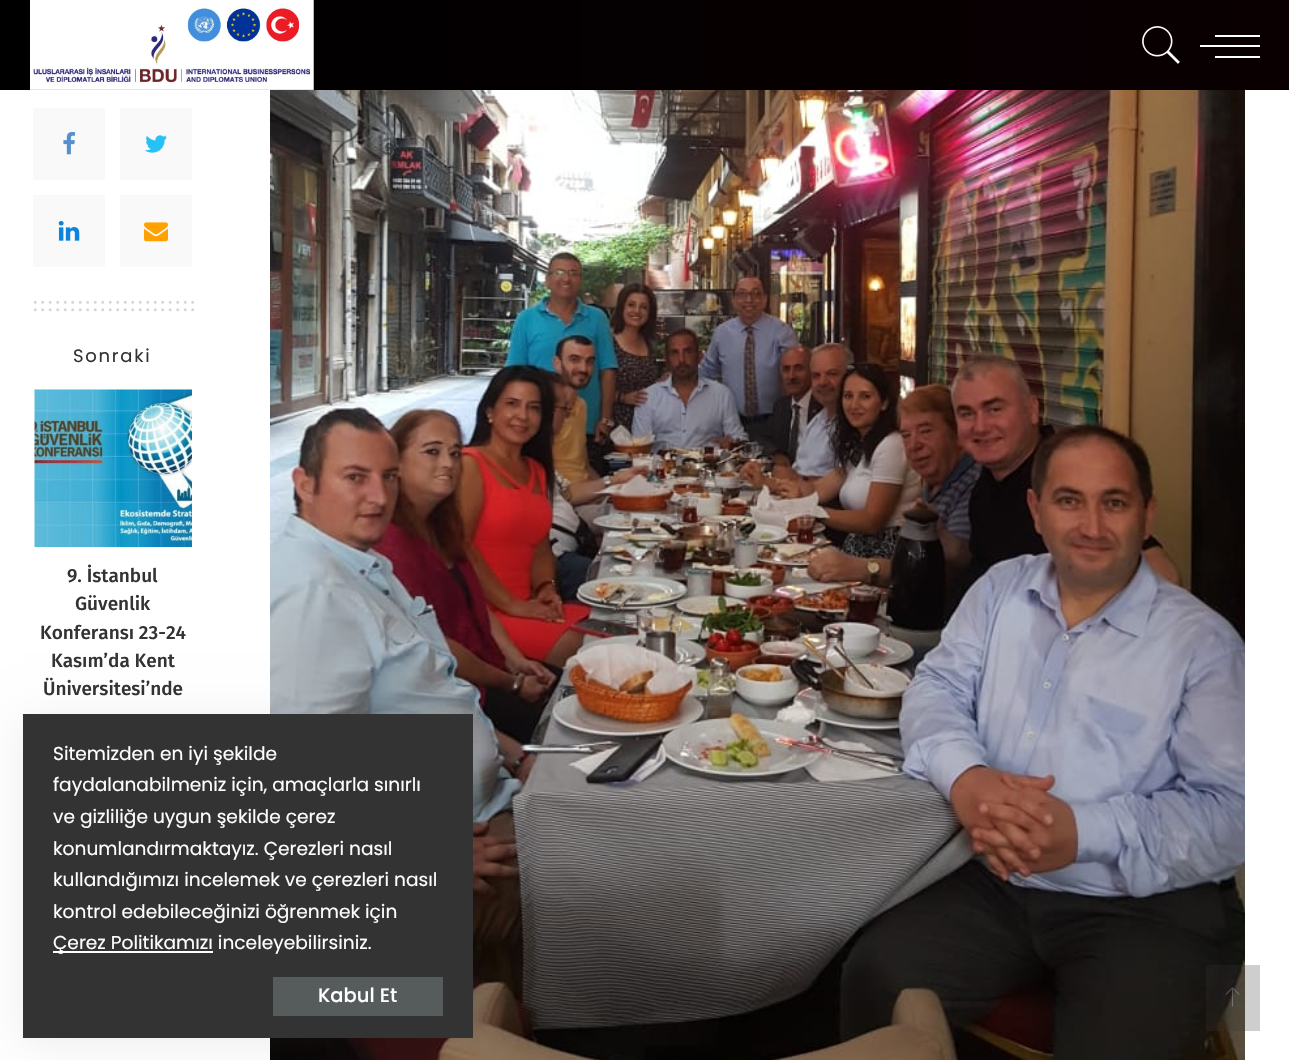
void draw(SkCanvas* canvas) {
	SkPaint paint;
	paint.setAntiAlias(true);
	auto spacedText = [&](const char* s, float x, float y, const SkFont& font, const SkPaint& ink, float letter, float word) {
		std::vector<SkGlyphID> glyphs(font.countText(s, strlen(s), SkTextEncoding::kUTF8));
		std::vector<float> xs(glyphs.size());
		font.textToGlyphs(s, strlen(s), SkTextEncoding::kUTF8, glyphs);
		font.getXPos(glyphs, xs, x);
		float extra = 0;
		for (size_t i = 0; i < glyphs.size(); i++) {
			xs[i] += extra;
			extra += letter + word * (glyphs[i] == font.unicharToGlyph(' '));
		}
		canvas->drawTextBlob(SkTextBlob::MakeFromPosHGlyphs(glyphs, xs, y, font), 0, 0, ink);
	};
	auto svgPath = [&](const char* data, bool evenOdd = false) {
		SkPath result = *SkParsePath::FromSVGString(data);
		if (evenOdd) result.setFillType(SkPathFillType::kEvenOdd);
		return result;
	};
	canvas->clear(0xffffffff);
	{
		const SkColor colors[] = {0xff000000, 0xff0a0002};
		const float stops[] = {0, 1};
		const SkPoint ends[] = {{0, 45}, {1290, 45}};
		paint.setShader(SkGradientShader::MakeLinear(ends, colors, stops, 2, SkTileMode::kClamp));
		paint.setAlpha(255);
	}
	canvas->drawRect(SkRect::MakeXYWH(0, 0, 1289, 90), paint);
	canvas->drawImageRect(SkImages::DeferredFromEncodedData(SkData::MakeFromFileName("img1.png")), SkRect::MakeXYWH(30, 0, 284, 90), SkSamplingOptions());
	canvas->drawImageRect(SkImages::DeferredFromEncodedData(SkData::MakeFromFileName("img2.png")), SkRect::MakeXYWH(1142, 26, 38, 38), SkSamplingOptions());
	paint.setShader(nullptr);
	paint.setColor(0xffffffff);
	canvas->drawRect(SkRect::MakeXYWH(1200, 45, 60, 2), paint);
	canvas->drawRect(SkRect::MakeXYWH(1215, 35, 45, 2), paint);
	canvas->drawRect(SkRect::MakeXYWH(1215, 56, 45, 2), paint);
	paint.setColor(0xfff9f9f9);
	canvas->drawRect(SkRect::MakeXYWH(33, 108, 72, 72), paint);
	canvas->drawImageRect(SkImages::DeferredFromEncodedData(SkData::MakeFromFileName("img3.png")), SkRect::MakeXYWH(63, 132, 12, 23), SkSamplingOptions());
	canvas->drawRect(SkRect::MakeXYWH(120, 108, 72, 72), paint);
	canvas->drawImageRect(SkImages::DeferredFromEncodedData(SkData::MakeFromFileName("img4.png")), SkRect::MakeXYWH(145, 135, 22, 18), SkSamplingOptions());
	canvas->drawRect(SkRect::MakeXYWH(33, 195, 72, 72), paint);
	canvas->drawImageRect(SkImages::DeferredFromEncodedData(SkData::MakeFromFileName("img5.png")), SkRect::MakeXYWH(58, 221, 22, 20), SkSamplingOptions());
	canvas->drawRect(SkRect::MakeXYWH(120, 195, 72, 72), paint);
	canvas->drawImageRect(SkImages::DeferredFromEncodedData(SkData::MakeFromFileName("img6.png")), SkRect::MakeXYWH(144, 222, 24, 20), SkSamplingOptions());
	paint.setStroke(true);
	paint.setStrokeWidth(3);
	paint.setStrokeCap(SkPaint::kRound_Cap);
	paint.setColor(0xffd6d6d6);
	paint.setPathEffect(SkDashPathEffect::Make({{0, 7.5f}}, 0));
	canvas->drawPath(svgPath("M35.2 302.2H193"), paint);
	paint.setPathEffect(nullptr);
	paint.setPathEffect(SkDashPathEffect::Make({{0, 7.5f}}, 0));
	canvas->drawPath(svgPath("M35.2 309.8H193"), paint);
	paint.setPathEffect(nullptr);
	SkFont f1(fontMgr->matchFamilyStyle("Poppins", SkFontStyle::Normal()), 18);
	f1.setSubpixel(true);
	paint.setStroke(false);
	paint.setColor(0xff333333);
	spacedText("Sonraki", 73, 362, f1, paint, 1.75, 0);
	canvas->drawImageRect(SkImages::DeferredFromEncodedData(SkData::MakeFromFileName("img7.png")), SkRect::MakeXYWH(34, 389, 158, 158), SkSamplingOptions());
	SkFont f2(fontMgr->matchFamilyStyle("Fira Sans", SkFontStyle(500, SkFontStyle::kNormal_Width, SkFontStyle::kUpright_Slant)), 19);
	f2.setSubpixel(true);
	canvas->drawString("9. İstanbul", 67, 582, f2, paint);
	canvas->drawString("Güvenlik", 75, 610, f2, paint);
	canvas->drawString("Konferansı 23-24", 40, 639, f2, paint);
	canvas->drawString("Kasım’da Kent", 51, 667, f2, paint);
	canvas->drawString("Üniversitesi’nde", 43, 695, f2, paint);
	canvas->drawImageRect(SkImages::DeferredFromEncodedData(SkData::MakeFromFileName("img8.png")), SkRect::MakeXYWH(270, 90, 975, 970), SkSamplingOptions());
	paint.setColor(0x12000000);
	paint.setMaskFilter(SkMaskFilter::MakeBlur(kNormal_SkBlurStyle, 22.5));
	canvas->drawRect(SkRect::MakeXYWH(23, 720, 450, 324), paint);
	paint.setMaskFilter(nullptr);
	paint.setColor(0xff333333);
	canvas->drawRect(SkRect::MakeXYWH(23, 714, 450, 324), paint);
	SkFont f3(fontMgr->matchFamilyStyle("Poppins", SkFontStyle::Normal()), 18.6);
	f3.setSubpixel(true);
	paint.setColor(0xffffffff);
	canvas->drawString("Sitemizden en iyi şekilde", 53, 760, f3, paint);
	canvas->drawString("faydalanabilmeniz için, amaçlarla sınırlı", 53, 791, f3, paint);
	canvas->drawString("ve gizliliğe uygun şekilde çerez", 53, 823, f3, paint);
	canvas->drawString("konumlandırmaktayız. Çerezleri nasıl", 53, 855, f3, paint);
	canvas->drawString("kullandığımızı incelemek ve çerezleri nasıl", 53, 886, f3, paint);
	canvas->drawString("kontrol edebileceğinizi öğrenmek için", 53, 918, f3, paint);
	canvas->drawRect(SkRect::MakeXYWH(53, 951, 160, 2), paint);
	canvas->drawString("Çerez Politikamızı inceleyebilirsiniz.", 53, 949, f3, paint);
	paint.setColor(0xff565c5c);
	canvas->drawRect(SkRect::MakeXYWH(273, 977, 170, 39), paint);
	SkFont f4(fontMgr->matchFamilyStyle("Poppins", SkFontStyle(500, SkFontStyle::kNormal_Width, SkFontStyle::kUpright_Slant)), 19.5);
	f4.setSubpixel(true);
	paint.setColor(0xffffffff);
	canvas->drawString("Kabul Et", 318, 1002, f4, paint);
	paint.setColor(0x3d333333);
	canvas->drawRect(SkRect::MakeXYWH(1206, 965, 54, 66), paint);
	canvas->drawImageRect(SkImages::DeferredFromEncodedData(SkData::MakeFromFileName("img9.png")), SkRect::MakeXYWH(1225, 987, 15, 20), SkSamplingOptions());
}
